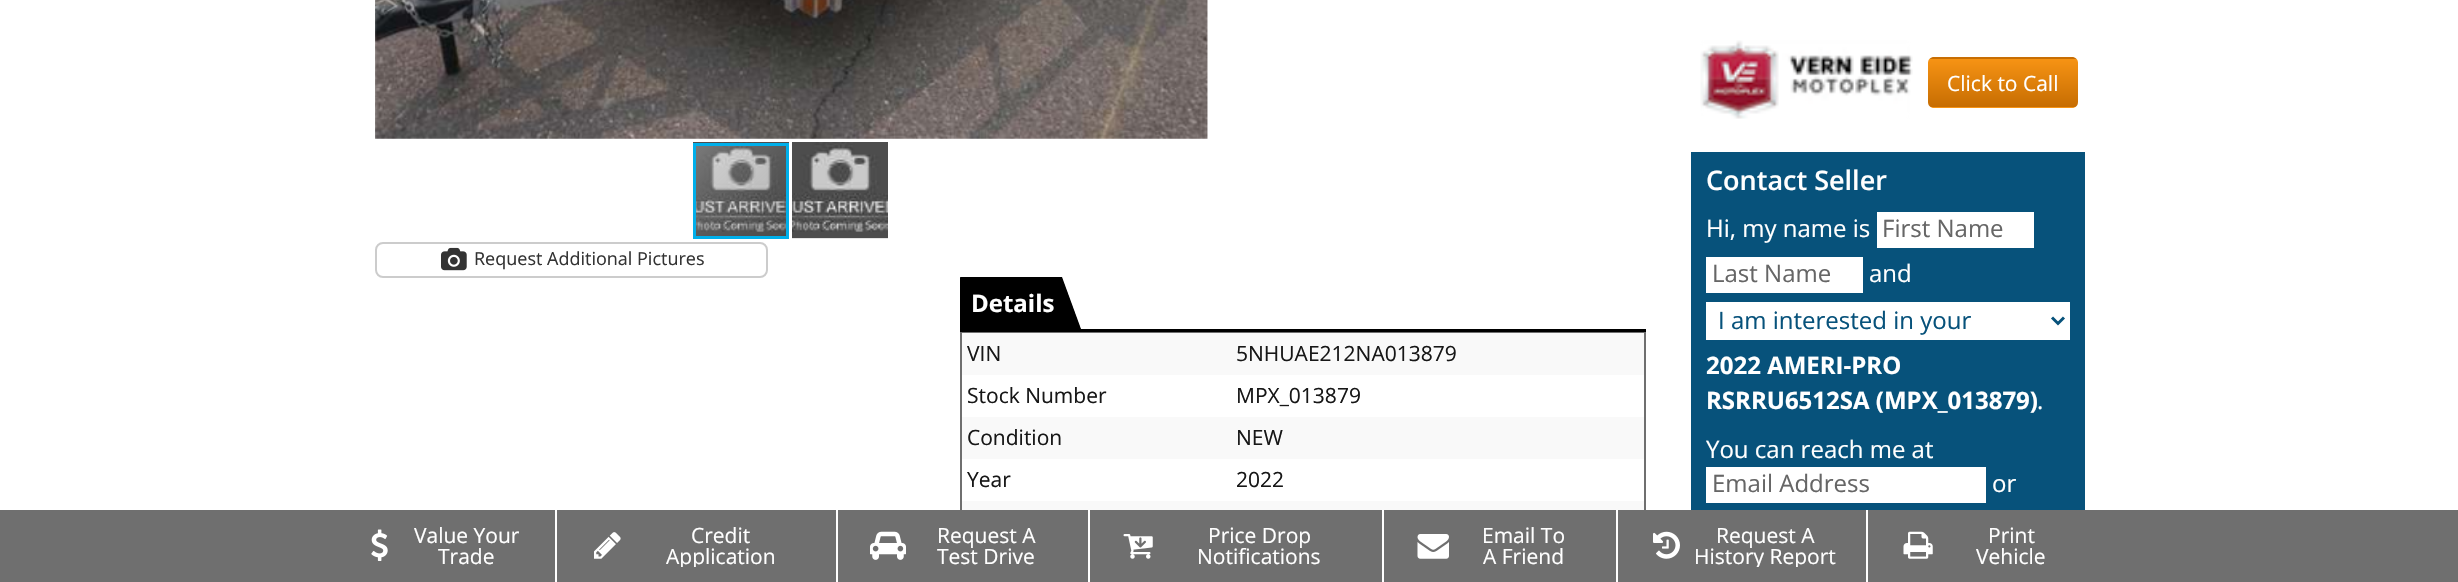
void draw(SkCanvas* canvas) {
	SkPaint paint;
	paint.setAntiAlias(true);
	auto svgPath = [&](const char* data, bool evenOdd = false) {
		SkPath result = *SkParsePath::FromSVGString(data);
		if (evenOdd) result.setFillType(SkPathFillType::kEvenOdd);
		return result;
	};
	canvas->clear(0xffffffff);
	canvas->drawImageRect(SkImages::DeferredFromEncodedData(SkData::MakeFromFileName("img1.png")), SkRect::MakeXYWH(375, 0, 833, 139), SkSamplingOptions());
	canvas->drawImageRect(SkImages::DeferredFromEncodedData(SkData::MakeFromFileName("img2.png")), SkRect::MakeXYWH(693, 142, 96, 94), SkSamplingOptions());
	paint.setColor(0xffe5e5e5);
	canvas->drawRect(SkRect::MakeXYWH(792, 238, 96, 1), paint);
	canvas->drawImageRect(SkImages::DeferredFromEncodedData(SkData::MakeFromFileName("img3.png")), SkRect::MakeXYWH(792, 142, 96, 96), SkSamplingOptions());
	paint.setStroke(true);
	paint.setStrokeWidth(3);
	paint.setColor(0xff00afea);
	canvas->drawRect(SkRect::MakeXYWH(694.5, 144.5, 93, 93), paint);
	paint.setStrokeWidth(2);
	paint.setColor(0xffcccccc);
	canvas->drawRoundRect(SkRect::MakeXYWH(376, 243, 391, 34), 7, 7, paint);
	canvas->drawImageRect(SkImages::DeferredFromEncodedData(SkData::MakeFromFileName("img4.png")), SkRect::MakeXYWH(441, 247, 26, 24), SkSamplingOptions());
	SkFont f1(fontMgr->matchFamilyStyle("Open Sans", SkFontStyle::Normal()), 18);
	f1.setSubpixel(true);
	paint.setStroke(false);
	paint.setColor(0xff333333);
	canvas->drawString("Request Additional Pictures", 474, 265, f1, paint);
	canvas->drawImageRect(SkImages::DeferredFromEncodedData(SkData::MakeFromFileName("img5.png")), SkRect::MakeXYWH(1700, 40, 213, 79), SkSamplingOptions());
	canvas->save();
	canvas->clipPath(svgPath("M1934 57H2072C2075.5 57 2078 59.5 2078 63V102C2078 105.5 2075.5 108 2072 108H1934C1930.5 108 1928 105.5 1928 102V63C1928 59.5 1930.5 57 1934 57Z"), true);
	{
		const SkColor colors[] = {0xfff79414, 0xffc76d02};
		const float stops[] = {0, 1};
		const SkPoint ends[] = {{2003, 10}, {2003, 59}};
		paint.setShader(SkGradientShader::MakeLinear(ends, colors, stops, 2, SkTileMode::kClamp));
		paint.setAlpha(255);
	}
	canvas->drawRect(SkRect::MakeXYWH(1928, 57, 150, 2), paint);
	{
		const SkColor colors[] = {0xfff79414, 0xffc76d02};
		const float stops[] = {0, 1};
		const SkPoint ends[] = {{2003, 58}, {2003, 107}};
		paint.setShader(SkGradientShader::MakeLinear(ends, colors, stops, 2, SkTileMode::kClamp));
		paint.setAlpha(255);
	}
	canvas->drawRect(SkRect::MakeXYWH(1928, 59, 150, 48), paint);
	{
		const SkColor colors[] = {0xfff79414, 0xffc76d02};
		const float stops[] = {0, 1};
		const SkPoint ends[] = {{2003, 107}, {2003, 155}};
		paint.setShader(SkGradientShader::MakeLinear(ends, colors, stops, 2, SkTileMode::kClamp));
		paint.setAlpha(255);
	}
	canvas->drawRect(SkRect::MakeXYWH(1928, 107, 150, 1), paint);
	canvas->restore();
	SkFont f2(fontMgr->matchFamilyStyle("Open Sans", SkFontStyle::Normal()), 21);
	f2.setSubpixel(true);
	paint.setShader(nullptr);
	paint.setColor(0xffffffff);
	canvas->drawString("Click to Call", 1947, 91, f2, paint);
	paint.setColor(0xff07527b);
	canvas->drawRect(SkRect::MakeXYWH(1691, 152, 394, 358), paint);
	SkFont f3(fontMgr->matchFamilyStyle("Open Sans", SkFontStyle(600, SkFontStyle::kNormal_Width, SkFontStyle::kUpright_Slant)), 27);
	f3.setSubpixel(true);
	paint.setColor(0xffffffff);
	canvas->drawString("Contact Seller", 1706, 190, f3, paint);
	SkFont f4(fontMgr->matchFamilyStyle("Open Sans", SkFontStyle::Normal()), 24);
	f4.setSubpixel(true);
	canvas->drawString("Hi, my name is", 1706, 237, f4, paint);
	canvas->drawRect(SkRect::MakeXYWH(1877, 212, 157, 36), paint);
	paint.setColor(0xff666666);
	canvas->drawString("First Name", 1882, 237, f4, paint);
	paint.setColor(0xffffffff);
	canvas->drawRect(SkRect::MakeXYWH(1706, 257, 157, 36), paint);
	paint.setColor(0xff666666);
	canvas->drawString("Last Name", 1712, 282, f4, paint);
	paint.setColor(0xffffffff);
	canvas->drawString("and", 1869, 282, f4, paint);
	canvas->drawRect(SkRect::MakeXYWH(1706, 302, 364, 38), paint);
	paint.setStroke(true);
	paint.setStrokeWidth(3);
	paint.setColor(0xff07527b);
	canvas->drawPath(svgPath("M2052 317.5L2058 323.5L2064 317.5"), paint);
	paint.setStroke(false);
	canvas->drawString("I am interested in your", 1718, 329, f4, paint);
	SkFont f5(fontMgr->matchFamilyStyle("Open Sans", SkFontStyle::Bold()), 24);
	f5.setSubpixel(true);
	paint.setColor(0xffffffff);
	canvas->drawString("2022 AMERI-PRO", 1706, 374, f5, paint);
	canvas->drawString("RSRRU6512SA (MPX_013879)", 1706, 409, f5, paint);
	canvas->drawString(".", 2037, 409, f4, paint);
	canvas->drawString("You can reach me at", 1706, 458, f4, paint);
	canvas->drawRect(SkRect::MakeXYWH(1706, 467, 280, 36), paint);
	paint.setColor(0xff666666);
	canvas->drawString("Email Address", 1712, 492, f4, paint);
	paint.setColor(0xffffffff);
	canvas->drawString("or", 1992, 492, f4, paint);
	paint.setColor(0xff000000);
	canvas->drawRect(SkRect::MakeXYWH(960, 329, 686, 3), paint);
	canvas->drawPath(svgPath("M960 277H1062L1081 329H979Z"), paint);
	paint.setStroke(true);
	paint.setStrokeWidth(1.5);
	canvas->drawPath(svgPath("M961.5 278H1061L1079.5 328.5H979.5Z"), paint);
	paint.setStroke(false);
	canvas->drawRect(SkRect::MakeXYWH(962, 282, 17, 47), paint);
	canvas->drawRect(SkRect::MakeXYWH(960, 278, 1, 2), paint);
	canvas->drawRect(SkRect::MakeXYWH(960, 278, 2, 52), paint);
	paint.setColor(0xffffffff);
	canvas->drawString("Details", 971, 312, f5, paint);
	paint.setStroke(true);
	paint.setStrokeWidth(2);
	paint.setColor(0xff6f6f6f);
	canvas->drawRect(SkRect::MakeXYWH(961, 333, 684, 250), paint);
	paint.setStroke(false);
	paint.setColor(0xfff9f9f9);
	canvas->drawRect(SkRect::MakeXYWH(962, 333, 682, 42), paint);
	paint.setColor(0xff171717);
	canvas->drawString("VIN", 967, 361, f2, paint);
	canvas->drawString("5NHUAE212NA013879", 1236, 361, f2, paint);
	canvas->drawString("Stock Number", 967, 403, f2, paint);
	canvas->drawString("MPX_013879", 1236, 403, f2, paint);
	paint.setColor(0xfff9f9f9);
	canvas->drawRect(SkRect::MakeXYWH(962, 417, 682, 42), paint);
	paint.setColor(0xff171717);
	canvas->drawString("Condition", 967, 445, f2, paint);
	canvas->drawString("NEW", 1236, 445, f2, paint);
	canvas->drawString("Year", 967, 487, f2, paint);
	canvas->drawString("2022", 1236, 487, f2, paint);
	paint.setColor(0xfff9f9f9);
	canvas->drawRect(SkRect::MakeXYWH(962, 501, 682, 9), paint);
	paint.setColor(0xff6f6f6f);
	canvas->drawRect(SkRect::MakeXYWH(0, 510, 2458, 72), paint);
	canvas->drawImageRect(SkImages::DeferredFromEncodedData(SkData::MakeFromFileName("img6.png")), SkRect::MakeXYWH(371, 529, 17, 32), SkSamplingOptions());
	paint.setColor(0xffffffff);
	canvas->drawString("Value Your", 414, 543, f2, paint);
	canvas->drawString("Trade", 438, 564, f2, paint);
	canvas->drawRect(SkRect::MakeXYWH(555, 510, 2, 72), paint);
	canvas->drawImageRect(SkImages::DeferredFromEncodedData(SkData::MakeFromFileName("img7.png")), SkRect::MakeXYWH(594, 532, 27, 27), SkSamplingOptions());
	canvas->drawString("Credit", 691, 543, f2, paint);
	canvas->save();
	canvas->clipRect(SkRect::MakeXYWH(627, 525, 186, 42));
	canvas->drawString("Application", 666, 564, f2, paint);
	canvas->restore();
	canvas->drawRect(SkRect::MakeXYWH(836, 510, 2, 72), paint);
	canvas->drawImageRect(SkImages::DeferredFromEncodedData(SkData::MakeFromFileName("img8.png")), SkRect::MakeXYWH(870, 531, 36, 29), SkSamplingOptions());
	canvas->drawString("Request A", 937, 543, f2, paint);
	canvas->drawString("Test Drive", 937, 564, f2, paint);
	canvas->drawRect(SkRect::MakeXYWH(1088, 510, 2, 72), paint);
	canvas->drawImageRect(SkImages::DeferredFromEncodedData(SkData::MakeFromFileName("img9.png")), SkRect::MakeXYWH(1123, 534, 30, 25), SkSamplingOptions());
	canvas->drawString("Price Drop", 1208, 543, f2, paint);
	canvas->drawString("Notifications", 1197, 564, f2, paint);
	canvas->drawRect(SkRect::MakeXYWH(1382, 510, 2, 72), paint);
	canvas->drawImageRect(SkImages::DeferredFromEncodedData(SkData::MakeFromFileName("img10.png")), SkRect::MakeXYWH(1417, 534, 32, 25), SkSamplingOptions());
	canvas->drawString("Email To", 1482, 543, f2, paint);
	canvas->drawString("A Friend", 1483, 564, f2, paint);
	canvas->drawRect(SkRect::MakeXYWH(1616, 510, 2, 72), paint);
	canvas->drawImageRect(SkImages::DeferredFromEncodedData(SkData::MakeFromFileName("img11.png")), SkRect::MakeXYWH(1653, 531, 27, 28), SkSamplingOptions());
	canvas->drawString("Request A", 1716, 543, f2, paint);
	canvas->save();
	canvas->clipRect(SkRect::MakeXYWH(1688, 525, 156, 42));
	canvas->drawString("History Report", 1694, 564, f2, paint);
	canvas->restore();
	canvas->drawRect(SkRect::MakeXYWH(1866, 510, 2, 72), paint);
	canvas->drawImageRect(SkImages::DeferredFromEncodedData(SkData::MakeFromFileName("img12.png")), SkRect::MakeXYWH(1903, 531, 30, 28), SkSamplingOptions());
	canvas->drawString("Print", 1988, 543, f2, paint);
	canvas->drawString("Vehicle", 1976, 564, f2, paint);
}
